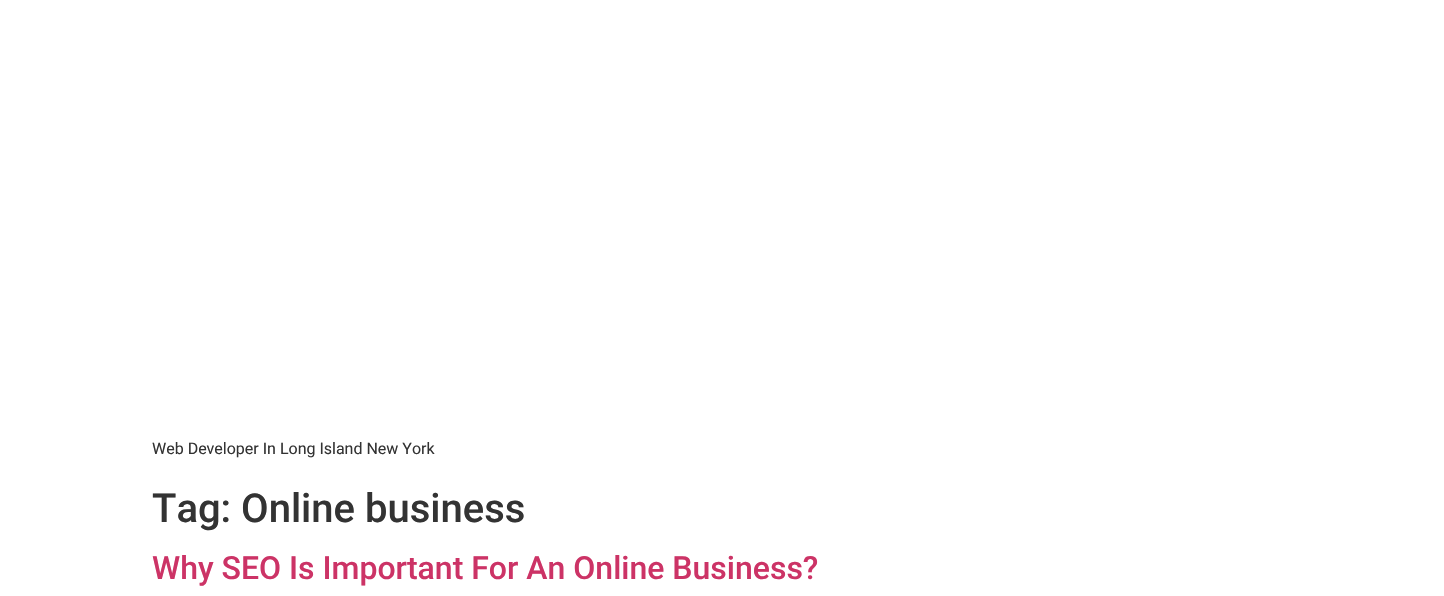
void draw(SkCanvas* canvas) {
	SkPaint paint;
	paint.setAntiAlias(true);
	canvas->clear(0xffffffff);
	SkFont f1(fontMgr->matchFamilyStyle("Roboto", SkFontStyle::Normal()), 16);
	f1.setSubpixel(true);
	paint.setColor(0xff333333);
	canvas->drawString("Web Developer In Long Island New York", 152, 454, f1, paint);
	SkFont f2(fontMgr->matchFamilyStyle("Roboto", SkFontStyle(500, SkFontStyle::kNormal_Width, SkFontStyle::kUpright_Slant)), 40);
	f2.setSubpixel(true);
	canvas->drawString("Tag: Online business", 152, 522, f2, paint);
	SkFont f3(fontMgr->matchFamilyStyle("Roboto", SkFontStyle(500, SkFontStyle::kNormal_Width, SkFontStyle::kUpright_Slant)), 32);
	f3.setSubpixel(true);
	paint.setColor(0xffcc3366);
	canvas->drawString("Why SEO Is Important For An Online Business?", 152, 579, f3, paint);
}
